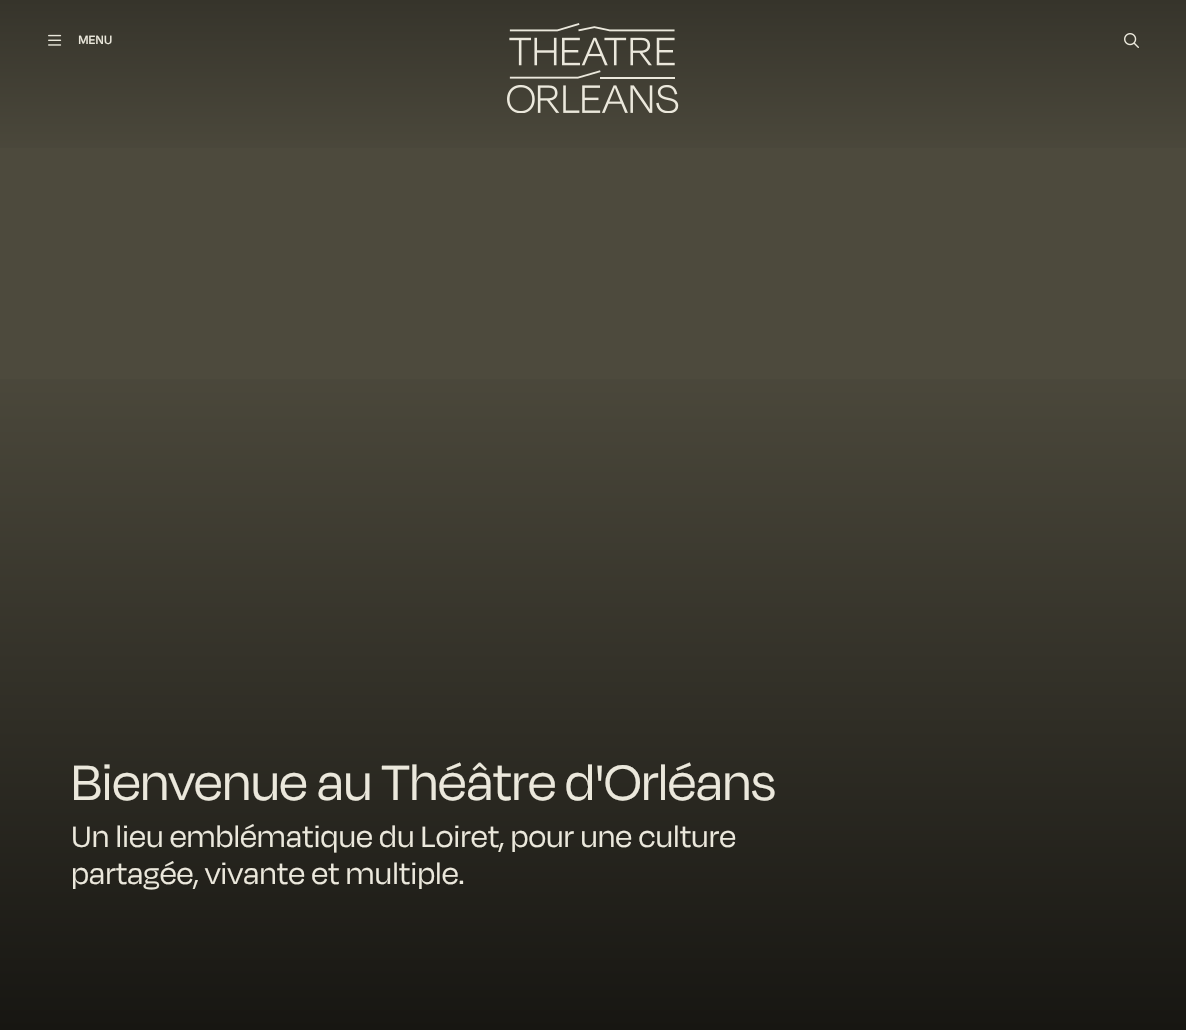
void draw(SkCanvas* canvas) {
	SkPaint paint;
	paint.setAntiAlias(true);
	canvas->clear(0xff4d4a3d);
	{
		const SkColor colors[] = {0xff36342b, 0xff4d4a3d};
		const float stops[] = {0, 1};
		const SkPoint ends[] = {{593, 0}, {593, 166}};
		paint.setShader(SkGradientShader::MakeLinear(ends, colors, stops, 2, SkTileMode::kClamp));
		paint.setAlpha(255);
	}
	canvas->drawRect(SkRect::MakeXYWH(0, 0, 1186, 148), paint);
	canvas->drawImageRect(SkImages::DeferredFromEncodedData(SkData::MakeFromFileName("img1.png")), SkRect::MakeXYWH(48, 34, 14, 12), SkSamplingOptions());
	SkFont f1(fontMgr->matchFamilyStyle("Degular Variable", SkFontStyle::Bold()), 13);
	f1.setSubpixel(true);
	paint.setShader(nullptr);
	paint.setColor(0xffebe8dc);
	canvas->drawString("MENU", 78, 44, f1, paint);
	canvas->drawImageRect(SkImages::DeferredFromEncodedData(SkData::MakeFromFileName("img2.png")), SkRect::MakeXYWH(507, 23, 172, 90), SkSamplingOptions());
	canvas->drawImageRect(SkImages::DeferredFromEncodedData(SkData::MakeFromFileName("img3.png")), SkRect::MakeXYWH(1124, 33, 15, 15), SkSamplingOptions());
	{
		const SkColor colors[] = {0xff171612, 0xff4c493c};
		const float stops[] = {0, 1};
		const SkPoint ends[] = {{593, 1030}, {593, 360}};
		paint.setShader(SkGradientShader::MakeLinear(ends, colors, stops, 2, SkTileMode::kClamp));
		paint.setAlpha(255);
	}
	canvas->drawRect(SkRect::MakeXYWH(0, 379, 1186, 651), paint);
	SkFont f2(fontMgr->matchFamilyStyle("Degular Variable", SkFontStyle::Normal()), 57.25);
	f2.setSubpixel(true);
	paint.setShader(nullptr);
	paint.setColor(0xffebe8dc);
	canvas->drawString("Bienvenue au Théâtre d'Orléans", 71, 800, f2, paint);
	SkFont f3(fontMgr->matchFamilyStyle("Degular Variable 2", SkFontStyle::Normal()), 33.9);
	f3.setSubpixel(true);
	canvas->drawString("Un lieu emblématique du Loiret, pour une culture", 71, 847, f3, paint);
	canvas->drawString("partagée, vivante et multiple.", 71, 884, f3, paint);
}
